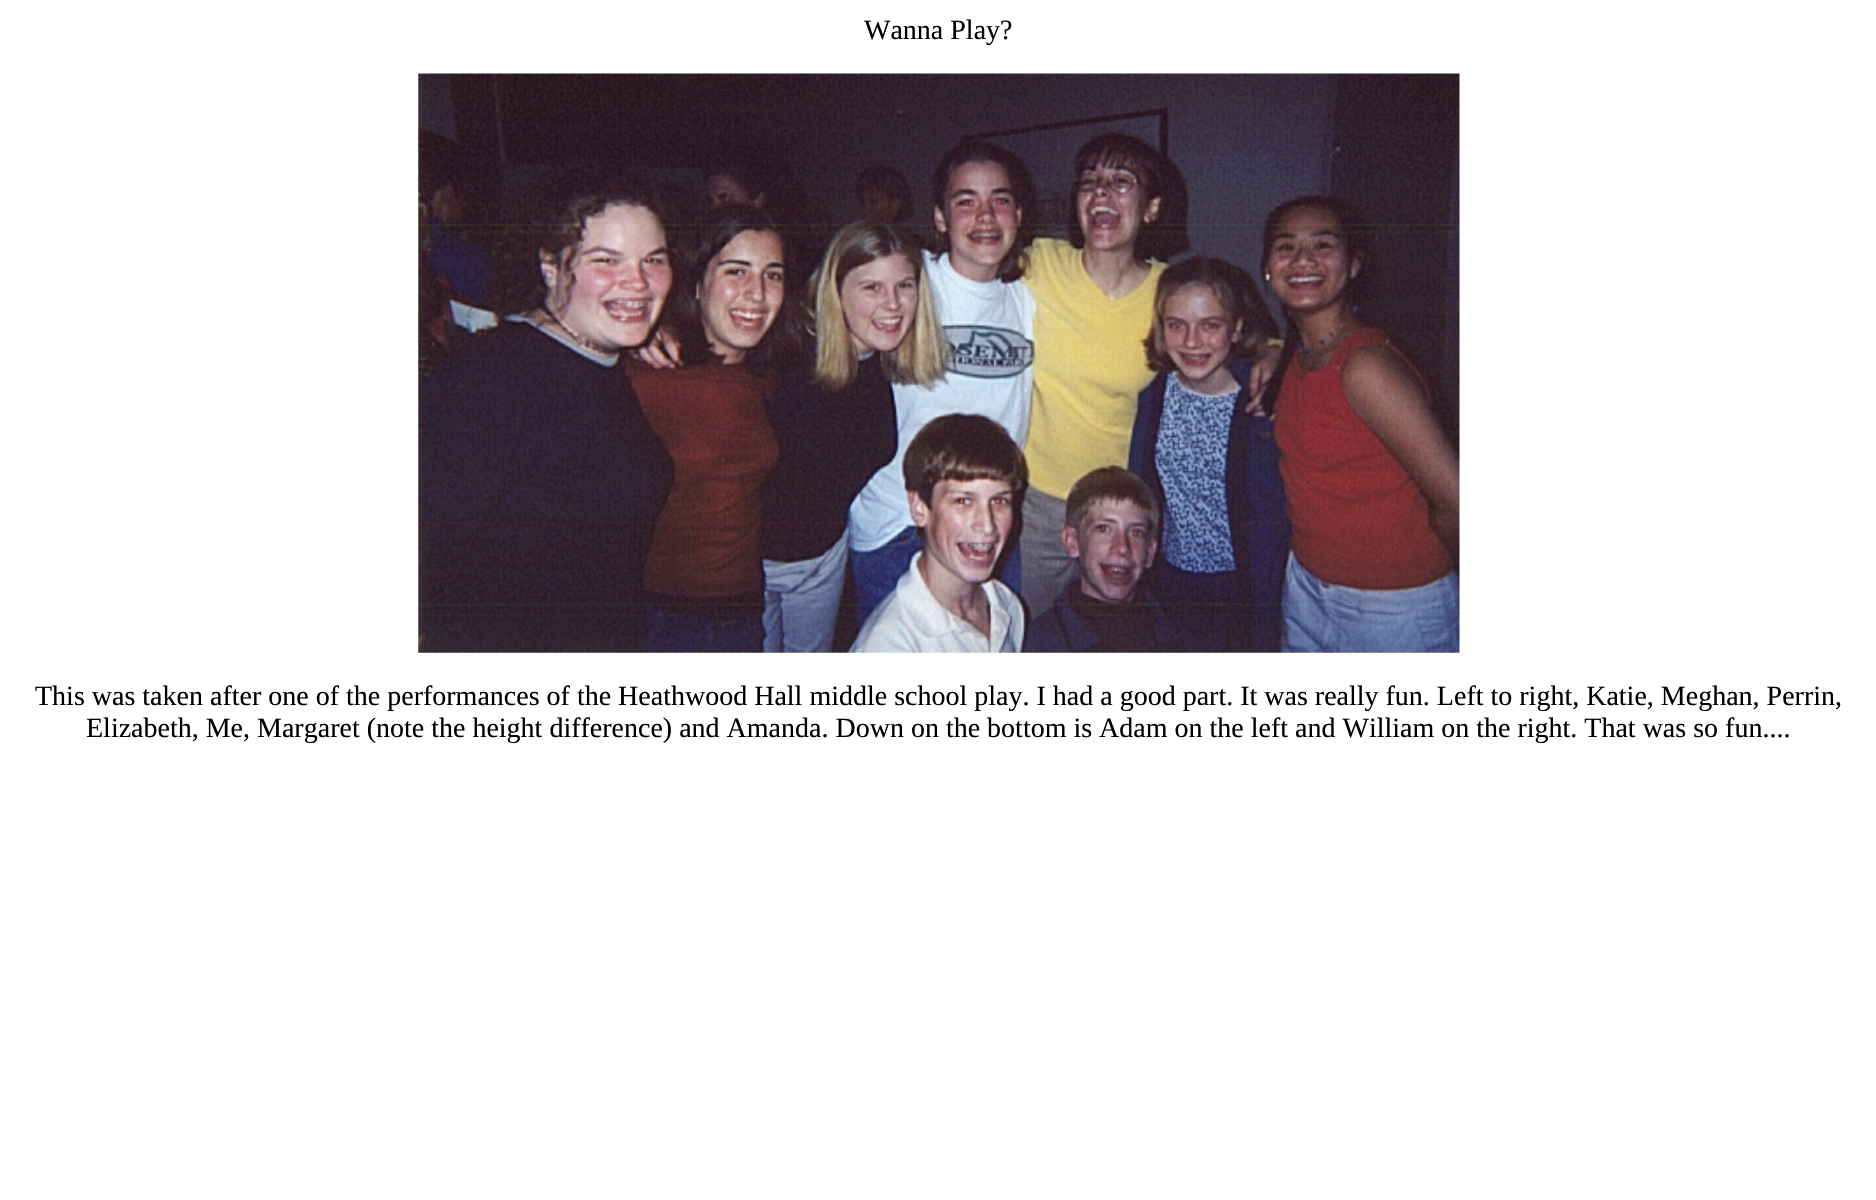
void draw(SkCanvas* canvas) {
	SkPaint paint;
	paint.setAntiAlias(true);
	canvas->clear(0xffffffff);
	SkFont f1(fontMgr->matchFamilyStyle("Liberation Serif", SkFontStyle::Normal()), 28);
	f1.setSubpixel(true);
	paint.setColor(0xff000000);
	canvas->drawString("Wanna Play?", 864, 39, f1, paint);
	canvas->drawImageRect(SkImages::DeferredFromEncodedData(SkData::MakeFromFileName("img1.png")), SkRect::MakeXYWH(418, 73, 1042, 580), SkSamplingOptions());
	canvas->drawString("This was taken after one of the performances of the Heathwood Hall middle school play. I had a good part. It was really fun. Left to right, Katie, Meghan, Perrin,", 35, 705, f1, paint);
	canvas->drawString("Elizabeth, Me, Margaret (note the height difference) and Amanda. Down on the bottom is Adam on the left and William on the right. That was so fun....", 86, 737, f1, paint);
}
